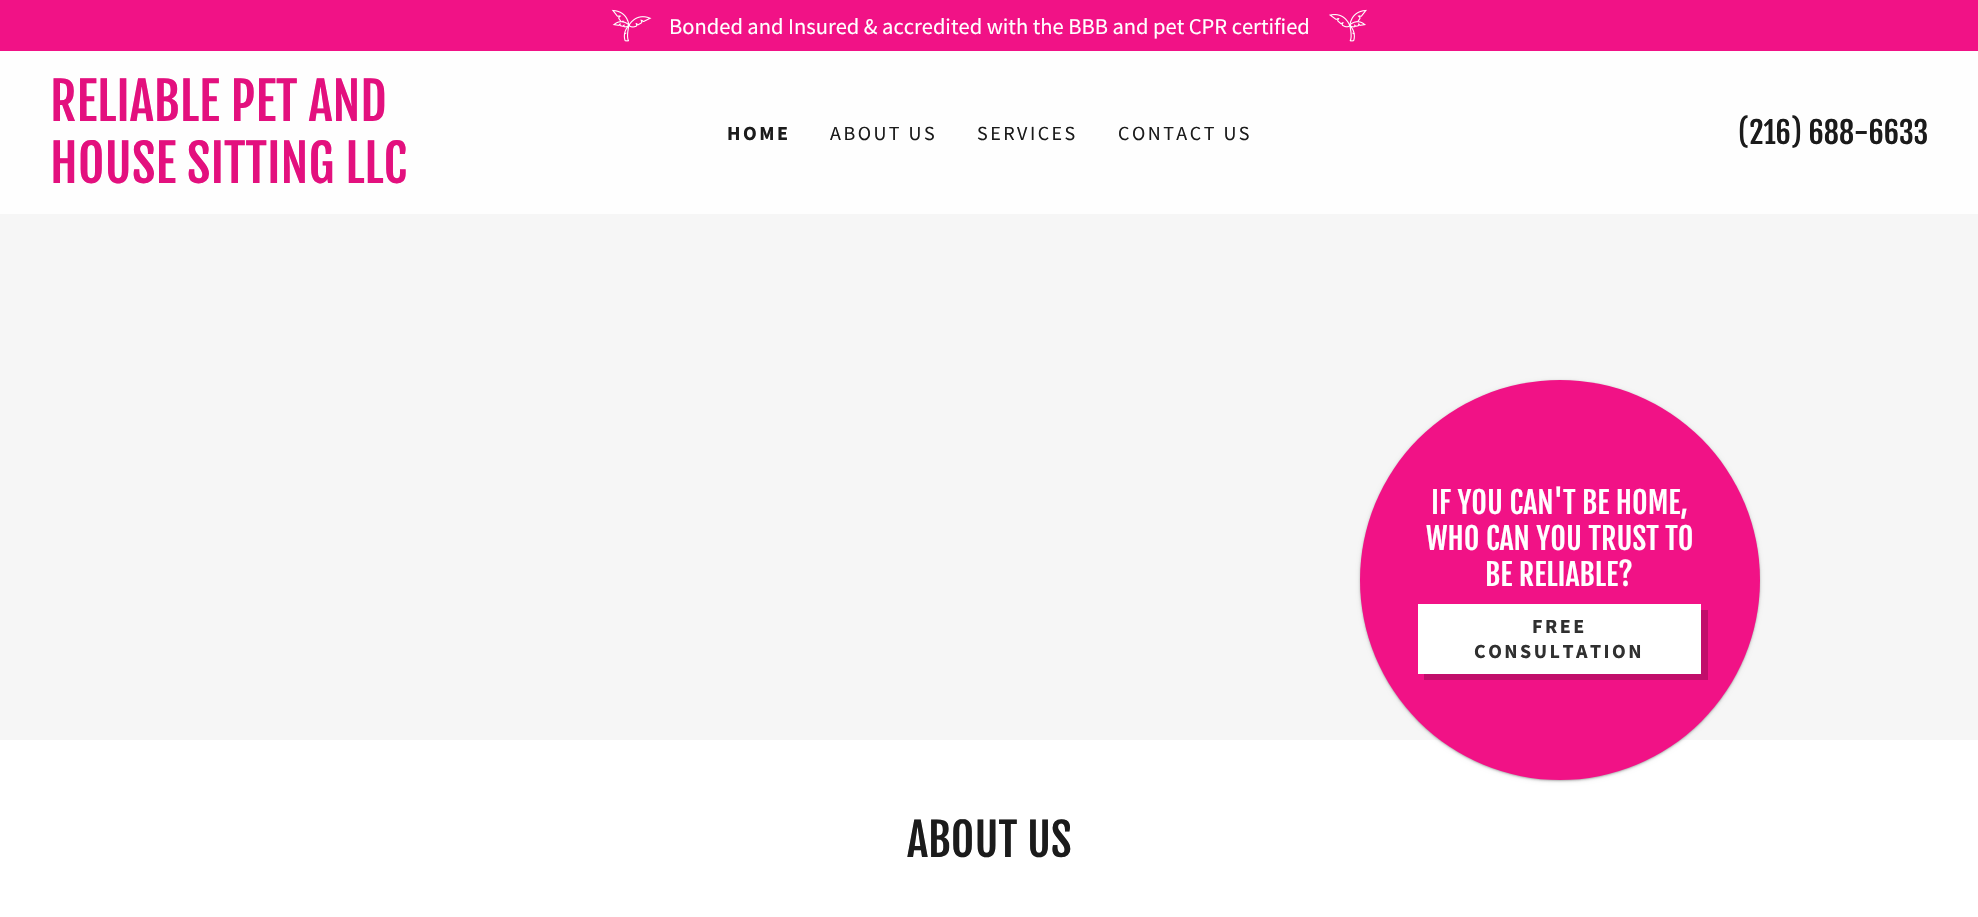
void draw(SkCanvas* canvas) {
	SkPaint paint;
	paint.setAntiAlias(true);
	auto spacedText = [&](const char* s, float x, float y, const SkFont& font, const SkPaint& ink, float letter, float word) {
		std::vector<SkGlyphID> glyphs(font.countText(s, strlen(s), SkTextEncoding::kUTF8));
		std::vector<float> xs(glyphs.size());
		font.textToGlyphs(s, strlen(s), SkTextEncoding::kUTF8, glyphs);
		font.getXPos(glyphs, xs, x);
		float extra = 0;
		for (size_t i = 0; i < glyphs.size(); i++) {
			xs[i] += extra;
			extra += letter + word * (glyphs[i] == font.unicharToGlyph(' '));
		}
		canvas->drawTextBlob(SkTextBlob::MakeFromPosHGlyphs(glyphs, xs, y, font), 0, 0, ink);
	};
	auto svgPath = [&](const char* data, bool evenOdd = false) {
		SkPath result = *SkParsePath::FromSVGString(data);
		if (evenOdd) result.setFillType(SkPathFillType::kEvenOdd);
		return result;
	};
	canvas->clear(0xfff6f6f6);
	paint.setColor(0xfff11286);
	canvas->drawRect(SkRect::MakeXYWH(0, 0, 1978, 51), paint);
	canvas->drawImageRect(SkImages::DeferredFromEncodedData(SkData::MakeFromFileName("img1.png")), SkRect::MakeXYWH(611, 9, 41, 33), SkSamplingOptions());
	SkFont f1(fontMgr->matchFamilyStyle("Source Sans Pro", SkFontStyle::Normal()), 22.5);
	f1.setSubpixel(true);
	paint.setColor(0xffffffff);
	canvas->drawString("Bonded and Insured & accredited with the BBB and pet CPR certified", 669, 34, f1, paint);
	canvas->drawImageRect(SkImages::DeferredFromEncodedData(SkData::MakeFromFileName("img2.png")), SkRect::MakeXYWH(1329, 9, 38, 33), SkSamplingOptions());
	paint.setColor(0xfffefefe);
	canvas->drawRect(SkRect::MakeXYWH(0, 51, 1978, 163), paint);
	SkFont f2(fontMgr->matchFamilyStyle("Fjalla One", SkFontStyle::Normal()), 51.25);
	f2.setSubpixel(true);
	paint.setColor(0xffe3107e);
	canvas->drawString("RELIABLE PET AND", 50, 121, f2, paint);
	canvas->drawString("HOUSE SITTING LLC", 50, 183, f2, paint);
	SkFont f3(fontMgr->matchFamilyStyle("Source Sans Pro", SkFontStyle::Bold()), 20);
	f3.setSubpixel(true);
	paint.setColor(0xff1b1b1b);
	spacedText("HOME", 727, 140, f3, paint, 2.5, 0);
	SkFont f4(fontMgr->matchFamilyStyle("Source Sans Pro", SkFontStyle::Normal()), 20);
	f4.setSubpixel(true);
	spacedText("ABOUT US", 830, 140, f4, paint, 2.5, 0);
	spacedText("SERVICES", 977, 140, f4, paint, 2.5, 0);
	spacedText("CONTACT US", 1118, 140, f4, paint, 2.5, 0);
	SkFont f5(fontMgr->matchFamilyStyle("Fjalla One", SkFontStyle::Normal()), 30);
	f5.setSubpixel(true);
	canvas->drawString("(216) 688-6633", 1738, 144, f5, paint);
	paint.setColor(0xffffffff);
	canvas->drawRect(SkRect::MakeXYWH(0, 740, 1978, 177), paint);
	paint.setColor(0x3d000000);
	paint.setMaskFilter(SkMaskFilter::MakeBlur(kNormal_SkBlurStyle, 1));
	canvas->drawRoundRect(SkRect::MakeXYWH(1360, 381, 400, 400), 200, 200, paint);
	paint.setMaskFilter(nullptr);
	paint.setColor(0x1f000000);
	paint.setMaskFilter(SkMaskFilter::MakeBlur(kNormal_SkBlurStyle, 2));
	canvas->drawRoundRect(SkRect::MakeXYWH(1360, 381, 400, 400), 200, 200, paint);
	paint.setMaskFilter(nullptr);
	paint.setColor(0xfff11286);
	canvas->drawCircle(1560, 580, 200, paint);
	paint.setColor(0xffffffff);
	canvas->drawString("IF YOU CAN'T BE HOME,", 1431, 514, f5, paint);
	canvas->drawString("WHO CAN YOU TRUST TO", 1426, 550, f5, paint);
	canvas->drawString("BE RELIABLE?", 1485, 586, f5, paint);
	canvas->drawRect(SkRect::MakeXYWH(1418, 604, 283, 70), paint);
	paint.setColor(0xffc10e6b);
	canvas->drawPath(svgPath("M1424 674V680H1708V610H1701V674Z"), paint);
	paint.setColor(0xff303030);
	spacedText("FREE", 1532, 633, f3, paint, 2.5, 0);
	spacedText("CONSULTATION", 1474, 658, f3, paint, 2.5, 0);
	SkFont f6(fontMgr->matchFamilyStyle("Fjalla One", SkFontStyle::Normal()), 45);
	f6.setSubpixel(true);
	paint.setColor(0xff1b1b1b);
	canvas->drawString("ABOUT US", 907, 857, f6, paint);
}
